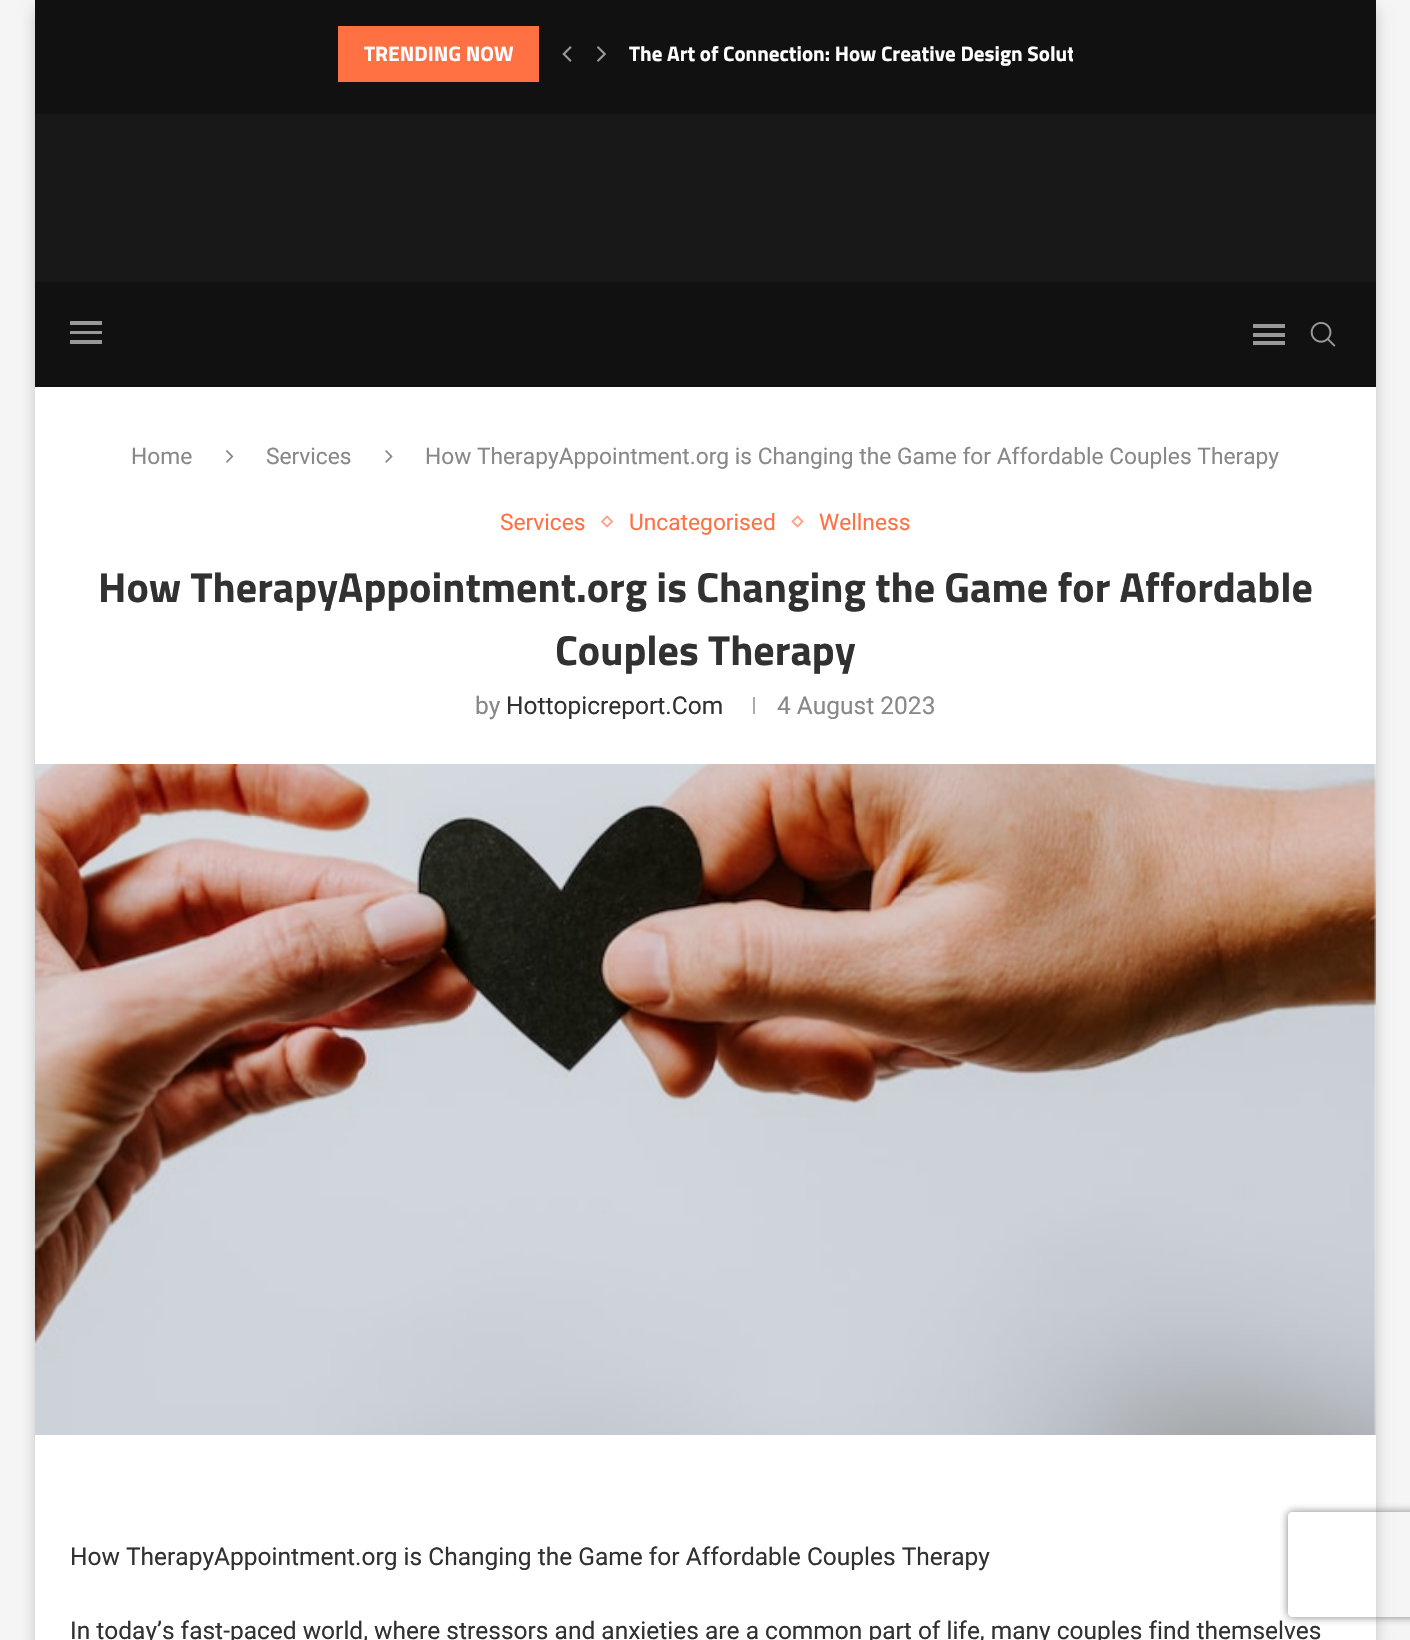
void draw(SkCanvas* canvas) {
	SkPaint paint;
	paint.setAntiAlias(true);
	auto svgPath = [&](const char* data, bool evenOdd = false) {
		SkPath result = *SkParsePath::FromSVGString(data);
		if (evenOdd) result.setFillType(SkPathFillType::kEvenOdd);
		return result;
	};
	canvas->clear(0xfff5f5f5);
	paint.setColor(0x33000000);
	paint.setMaskFilter(SkMaskFilter::MakeBlur(kNormal_SkBlurStyle, 7));
	canvas->drawRect(SkRect::MakeXYWH(35, 9, 1341, 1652), paint);
	paint.setMaskFilter(nullptr);
	paint.setColor(0xffffffff);
	canvas->drawRect(SkRect::MakeXYWH(35, 387, 1341, 1253), paint);
	paint.setColor(0xff111111);
	canvas->drawRect(SkRect::MakeXYWH(35, 0, 1341, 114), paint);
	paint.setColor(0xffff7043);
	canvas->drawRect(SkRect::MakeXYWH(338, 26, 201, 56), paint);
	SkFont f1(fontMgr->matchFamilyStyle("Titillium Web", SkFontStyle::Bold()), 21);
	f1.setSubpixel(true);
	paint.setColor(0xffffffff);
	canvas->drawString("TRENDING NOW", 364, 61, f1, paint);
	canvas->drawImageRect(SkImages::DeferredFromEncodedData(SkData::MakeFromFileName("img1.png")), SkRect::MakeXYWH(562, 46, 10, 16), SkSamplingOptions());
	canvas->drawImageRect(SkImages::DeferredFromEncodedData(SkData::MakeFromFileName("img2.png")), SkRect::MakeXYWH(597, 46, 9, 16), SkSamplingOptions());
	canvas->save();
	canvas->clipRect(SkRect::MakeXYWH(628, 26, 445, 56));
	canvas->drawString("The Art of Connection: How Creative Design Solut", 629, 61, f1, paint);
	canvas->restore();
	paint.setColor(0xff181818);
	canvas->drawRect(SkRect::MakeXYWH(35, 114, 1341, 168), paint);
	paint.setColor(0xff111111);
	canvas->drawRect(SkRect::MakeXYWH(35, 282, 1341, 105), paint);
	paint.setColor(0xff999999);
	canvas->drawRect(SkRect::MakeXYWH(70, 321, 32, 4), paint);
	canvas->drawRect(SkRect::MakeXYWH(70, 331, 32, 3), paint);
	canvas->drawRect(SkRect::MakeXYWH(70, 340, 32, 4), paint);
	canvas->drawRect(SkRect::MakeXYWH(1253, 324, 32, 4), paint);
	canvas->drawRect(SkRect::MakeXYWH(1253, 341, 32, 4), paint);
	canvas->drawRect(SkRect::MakeXYWH(1253, 333, 32, 4), paint);
	canvas->drawImageRect(SkImages::DeferredFromEncodedData(SkData::MakeFromFileName("img3.png")), SkRect::MakeXYWH(1310, 322, 26, 25), SkSamplingOptions());
	SkFont f2(fontMgr->matchFamilyStyle("Roboto", SkFontStyle::Normal()), 22.75);
	f2.setSubpixel(true);
	paint.setColor(0xff888888);
	canvas->drawString("Home", 131, 464, f2, paint);
	canvas->drawImageRect(SkImages::DeferredFromEncodedData(SkData::MakeFromFileName("img4.png")), SkRect::MakeXYWH(226, 450, 8, 13), SkSamplingOptions());
	canvas->drawString("Services", 266, 464, f2, paint);
	canvas->drawImageRect(SkImages::DeferredFromEncodedData(SkData::MakeFromFileName("img5.png")), SkRect::MakeXYWH(385, 450, 8, 13), SkSamplingOptions());
	canvas->drawString("How TherapyAppointment.org is Changing the Game for Affordable Couples Therapy", 425, 464, f2, paint);
	paint.setColor(0xffff7043);
	canvas->drawString("Services", 500, 530, f2, paint);
	paint.setStroke(true);
	paint.setStrokeWidth(1.8);
	paint.setColor(0xffffa285);
	canvas->drawPath(svgPath("M607 516.5L612 521.5L607 526.5L602 521.5Z"), paint);
	paint.setStroke(false);
	paint.setColor(0xffff7043);
	canvas->drawString("Uncategorised", 629, 530, f2, paint);
	paint.setStroke(true);
	paint.setColor(0xffffa285);
	canvas->drawPath(svgPath("M797.5 516.5L802.5 521.5L797.5 526.5L792.5 521.5Z"), paint);
	paint.setStroke(false);
	paint.setColor(0xffff7043);
	canvas->drawString("Wellness", 819, 530, f2, paint);
	SkFont f3(fontMgr->matchFamilyStyle("Titillium Web", SkFontStyle::Bold()), 42);
	f3.setSubpixel(true);
	paint.setColor(0xff313131);
	canvas->drawString("How TherapyAppointment.org is Changing the Game for Affordable", 98, 602, f3, paint);
	canvas->drawString("Couples Therapy", 555, 665, f3, paint);
	SkFont f4(fontMgr->matchFamilyStyle("Roboto", SkFontStyle::Normal()), 24.5);
	f4.setSubpixel(true);
	paint.setColor(0xff888888);
	canvas->drawString("by", 475, 714, f4, paint);
	paint.setColor(0xff313131);
	canvas->drawString("Hottopicreport.Com", 506, 714, f4, paint);
	paint.setColor(0xffacacac);
	canvas->drawRect(SkRect::MakeXYWH(753, 697, 2, 17), paint);
	paint.setColor(0xff888888);
	canvas->drawString("4 August 2023", 777, 714, f4, paint);
	canvas->drawImageRect(SkImages::DeferredFromEncodedData(SkData::MakeFromFileName("img6.png")), SkRect::MakeXYWH(35, 764, 1341, 671), SkSamplingOptions());
	paint.setColor(0xff313131);
	canvas->drawString("How TherapyAppointment.org is Changing the Game for Affordable Couples Therapy", 70, 1565, f4, paint);
	canvas->drawString("In today’s fast-paced world, where stressors and anxieties are a common part of life, many couples find themselves", 70, 1639, f4, paint);
	canvas->save();
	canvas->clipPath(svgPath("M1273 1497H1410V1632H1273ZM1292 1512H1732C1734 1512 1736 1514 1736 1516V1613C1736 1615 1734 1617 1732 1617H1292C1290 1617 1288 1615 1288 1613V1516C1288 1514 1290 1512 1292 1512Z", true), true);
	paint.setColor(0xff808080);
	paint.setMaskFilter(SkMaskFilter::MakeBlur(kNormal_SkBlurStyle, 4.5));
	canvas->drawRoundRect(SkRect::MakeXYWH(1288, 1512, 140, 105), 4, 4, paint);
	paint.setMaskFilter(nullptr);
	canvas->restore();
}
